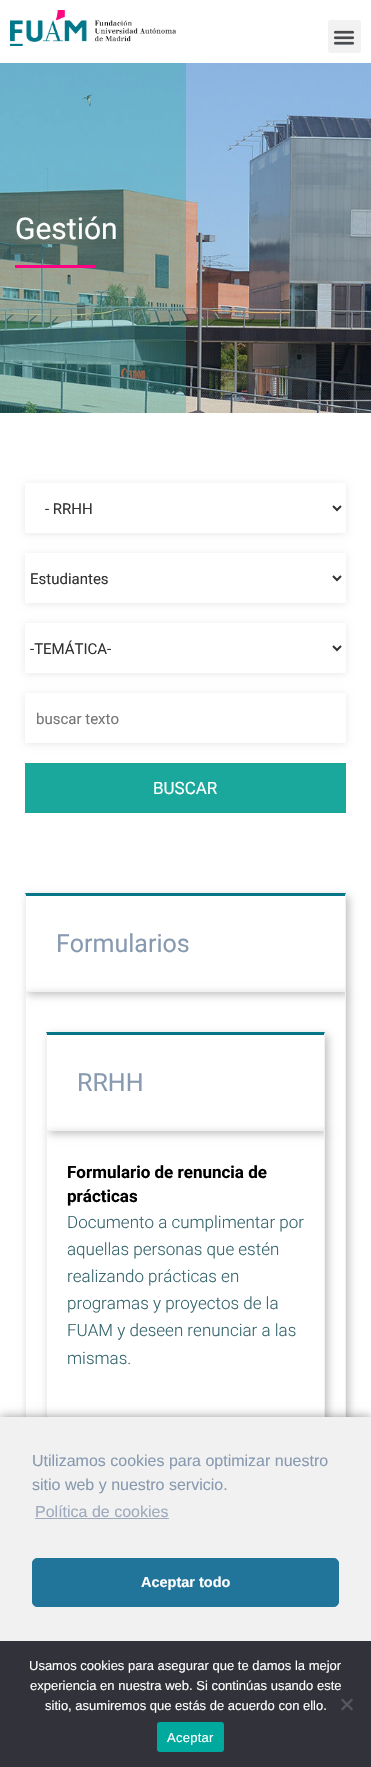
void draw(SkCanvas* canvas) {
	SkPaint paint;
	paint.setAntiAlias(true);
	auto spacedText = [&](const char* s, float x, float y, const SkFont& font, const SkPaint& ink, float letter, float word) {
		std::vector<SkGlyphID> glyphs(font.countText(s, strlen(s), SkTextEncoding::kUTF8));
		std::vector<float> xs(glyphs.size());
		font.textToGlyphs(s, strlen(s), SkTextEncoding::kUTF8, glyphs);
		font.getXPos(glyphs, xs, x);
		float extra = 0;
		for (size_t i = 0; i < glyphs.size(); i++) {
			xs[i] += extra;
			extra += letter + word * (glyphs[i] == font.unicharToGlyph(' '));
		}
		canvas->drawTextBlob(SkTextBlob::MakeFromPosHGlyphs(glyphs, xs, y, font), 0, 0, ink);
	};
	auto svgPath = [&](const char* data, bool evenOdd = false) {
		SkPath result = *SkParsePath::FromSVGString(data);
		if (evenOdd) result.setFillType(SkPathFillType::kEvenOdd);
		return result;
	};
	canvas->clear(0xffffffff);
	canvas->drawImageRect(SkImages::DeferredFromEncodedData(SkData::MakeFromFileName("img1.png")), SkRect::MakeXYWH(10, 10, 166, 36), SkSamplingOptions());
	paint.setColor(0xfff2f2f2);
	canvas->drawRoundRect(SkRect::MakeXYWH(328, 20, 33, 33), 3, 3, paint);
	canvas->drawImageRect(SkImages::DeferredFromEncodedData(SkData::MakeFromFileName("img2.png")), SkRect::MakeXYWH(333, 30, 22, 15), SkSamplingOptions());
	canvas->drawImageRect(SkImages::DeferredFromEncodedData(SkData::MakeFromFileName("img3.png")), SkRect::MakeXYWH(0, 63, 371, 350), SkSamplingOptions());
	paint.setColor(0x4d1aa79b);
	canvas->drawRect(SkRect::MakeXYWH(0, 63, 186, 350), paint);
	SkFont f1(fontMgr->matchFamilyStyle("Roboto", SkFontStyle::Normal()), 30);
	f1.setSubpixel(true);
	paint.setColor(0xffffffff);
	canvas->drawString("Gestión", 15, 239, f1, paint);
	paint.setColor(0xffff0284);
	canvas->drawRect(SkRect::MakeXYWH(15, 265, 80, 3), paint);
	canvas->save();
	canvas->clipPath(svgPath("M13 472H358V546H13ZM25 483H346V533H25Z", true), true);
	paint.setColor(0xffe8e8e8);
	paint.setMaskFilter(SkMaskFilter::MakeBlur(kNormal_SkBlurStyle, 3.5));
	canvas->drawRect(SkRect::MakeXYWH(25, 484, 321, 50), paint);
	paint.setMaskFilter(nullptr);
	canvas->restore();
	paint.setStroke(true);
	paint.setStrokeWidth(2);
	paint.setColor(0xff333333);
	canvas->drawPath(svgPath("M333 506L337 510L341 506"), paint);
	SkFont f2(fontMgr->matchFamilyStyle("Roboto", SkFontStyle::Normal()), 15);
	f2.setSubpixel(true);
	paint.setStroke(false);
	canvas->drawString("- RRHH", 45, 514, f2, paint);
	canvas->save();
	canvas->clipPath(svgPath("M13 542H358V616H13ZM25 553H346V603H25Z", true), true);
	paint.setColor(0xffe8e8e8);
	paint.setMaskFilter(SkMaskFilter::MakeBlur(kNormal_SkBlurStyle, 3.5));
	canvas->drawRect(SkRect::MakeXYWH(25, 554, 321, 50), paint);
	paint.setMaskFilter(nullptr);
	canvas->restore();
	paint.setStroke(true);
	paint.setColor(0xff333333);
	canvas->drawPath(svgPath("M333 576L337 580L341 576"), paint);
	paint.setStroke(false);
	canvas->drawString("Estudiantes", 30, 584, f2, paint);
	canvas->save();
	canvas->clipPath(svgPath("M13 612H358V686H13ZM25 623H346V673H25Z", true), true);
	paint.setColor(0xffe8e8e8);
	paint.setMaskFilter(SkMaskFilter::MakeBlur(kNormal_SkBlurStyle, 3.5));
	canvas->drawRect(SkRect::MakeXYWH(25, 624, 321, 50), paint);
	paint.setMaskFilter(nullptr);
	canvas->restore();
	paint.setStroke(true);
	paint.setColor(0xff333333);
	canvas->drawPath(svgPath("M333 646L337 650L341 646"), paint);
	paint.setStroke(false);
	canvas->drawString("-TEMÁTICA-", 30, 654, f2, paint);
	canvas->save();
	canvas->clipPath(svgPath("M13 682H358V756H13ZM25 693H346V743H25Z", true), true);
	paint.setColor(0xffe8e8e8);
	paint.setMaskFilter(SkMaskFilter::MakeBlur(kNormal_SkBlurStyle, 3.5));
	canvas->drawRect(SkRect::MakeXYWH(25, 694, 321, 50), paint);
	paint.setMaskFilter(nullptr);
	canvas->restore();
	paint.setColor(0xff757575);
	canvas->drawString("buscar texto", 36, 724, f2, paint);
	paint.setColor(0xff1aa89c);
	canvas->drawRect(SkRect::MakeXYWH(25, 763, 321, 50), paint);
	SkFont f3(fontMgr->matchFamilyStyle("Roboto", SkFontStyle::Normal()), 17);
	f3.setSubpixel(true);
	paint.setColor(0xffffffff);
	canvas->drawString("BUSCAR", 153, 794, f3, paint);
	canvas->save();
	canvas->clipPath(svgPath("M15 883H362V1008H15ZM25 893H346V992H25Z", true), true);
	paint.setColor(0x3d000000);
	paint.setMaskFilter(SkMaskFilter::MakeBlur(kNormal_SkBlurStyle, 4));
	canvas->drawRect(SkRect::MakeXYWH(28, 896, 321, 99), paint);
	paint.setMaskFilter(nullptr);
	canvas->restore();
	paint.setColor(0xff057687);
	canvas->drawPath(svgPath("M25 893H346L345 896H26Z"), paint);
	paint.setColor(0xfff1f1f1);
	canvas->drawPath(svgPath("M346 893V992L345 991V896Z"), paint);
	canvas->drawPath(svgPath("M25 992V893L26 896V991Z"), paint);
	SkFont f4(fontMgr->matchFamilyStyle("Roboto", SkFontStyle::Normal()), 25);
	f4.setSubpixel(true);
	paint.setColor(0xff889ab0);
	canvas->drawString("Formularios", 56, 952, f4, paint);
	canvas->save();
	canvas->clipPath(svgPath("M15 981H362V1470H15ZM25 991H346V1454H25Z", true), true);
	paint.setColor(0x3d000000);
	paint.setMaskFilter(SkMaskFilter::MakeBlur(kNormal_SkBlurStyle, 4));
	canvas->drawRect(SkRect::MakeXYWH(28, 994, 321, 463), paint);
	paint.setMaskFilter(nullptr);
	canvas->restore();
	paint.setStroke(true);
	paint.setStrokeWidth(1);
	paint.setColor(0xfff1f1f1);
	canvas->drawRect(SkRect::MakeXYWH(25.5, 991.5, 320, 462), paint);
	canvas->save();
	canvas->clipPath(svgPath("M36 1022H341V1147H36ZM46 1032H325V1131H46Z", true), true);
	paint.setStroke(false);
	paint.setColor(0x3d000000);
	paint.setMaskFilter(SkMaskFilter::MakeBlur(kNormal_SkBlurStyle, 4));
	canvas->drawRect(SkRect::MakeXYWH(49, 1035, 279, 99), paint);
	paint.setMaskFilter(nullptr);
	canvas->restore();
	paint.setColor(0xff057687);
	canvas->drawPath(svgPath("M46 1032H325L324 1035H47Z"), paint);
	paint.setColor(0xfff1f1f1);
	canvas->drawPath(svgPath("M325 1032V1131L324 1130V1035Z"), paint);
	canvas->drawPath(svgPath("M46 1131V1032L47 1035V1130Z"), paint);
	paint.setColor(0xff889ab0);
	canvas->drawString("RRHH", 77, 1091, f4, paint);
	canvas->save();
	canvas->clipPath(svgPath("M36 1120H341V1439H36ZM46 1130H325V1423H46Z", true), true);
	paint.setColor(0x3d000000);
	paint.setMaskFilter(SkMaskFilter::MakeBlur(kNormal_SkBlurStyle, 4));
	canvas->drawRect(SkRect::MakeXYWH(49, 1133, 279, 293), paint);
	paint.setMaskFilter(nullptr);
	canvas->restore();
	paint.setStroke(true);
	paint.setColor(0xfff1f1f1);
	canvas->drawRect(SkRect::MakeXYWH(46.5, 1130.5, 278, 292), paint);
	SkFont f5(fontMgr->matchFamilyStyle("Roboto", SkFontStyle::Bold()), 17);
	f5.setSubpixel(true);
	paint.setStroke(false);
	paint.setColor(0xff000000);
	canvas->drawString("Formulario de renuncia de", 67, 1178, f5, paint);
	canvas->drawString("prácticas", 67, 1202, f5, paint);
	SkFont f6(fontMgr->matchFamilyStyle("Roboto", SkFontStyle(300, SkFontStyle::kNormal_Width, SkFontStyle::kUpright_Slant)), 17);
	f6.setSubpixel(true);
	paint.setColor(0xff35656d);
	canvas->drawString("Documento a cumplimentar por", 67, 1228, f6, paint);
	canvas->drawString("aquellas personas que estén", 67, 1255, f6, paint);
	canvas->drawString("realizando prácticas en", 67, 1282, f6, paint);
	canvas->drawString("programas y proyectos de la", 67, 1309, f6, paint);
	canvas->drawString("FUAM y deseen renunciar a las", 67, 1336, f6, paint);
	canvas->drawString("mismas.", 67, 1364, f6, paint);
	paint.setColor(0x66000000);
	paint.setMaskFilter(SkMaskFilter::MakeBlur(kNormal_SkBlurStyle, 5));
	canvas->drawRect(SkRect::MakeXYWH(0, 1417, 371, 350), paint);
	paint.setMaskFilter(nullptr);
	paint.setColor(0xfff1f1f1);
	canvas->drawRect(SkRect::MakeXYWH(0, 1417, 371, 224), paint);
	SkFont f7(fontMgr->matchFamilyStyle("Liberation Sans", SkFontStyle::Normal()), 16);
	f7.setSubpixel(true);
	paint.setColor(0xff889ab0);
	canvas->drawString("Utilizamos cookies para optimizar nuestro", 32, 1466, f7, paint);
	canvas->drawString("sitio web y nuestro servicio.", 32, 1490, f7, paint);
	paint.setColor(0xff9dabbd);
	canvas->drawString("Política de cookies", 35, 1517, f7, paint);
	canvas->drawRect(SkRect::MakeXYWH(35, 1518, 134, 1), paint);
	paint.setColor(0xff21759b);
	canvas->drawRoundRect(SkRect::MakeXYWH(32.5, 1558.5, 306, 48), 4.5, 4.5, paint);
	paint.setStroke(true);
	canvas->drawRoundRect(SkRect::MakeXYWH(32.5, 1558.5, 306, 48), 4.5, 4.5, paint);
	SkFont f8(fontMgr->matchFamilyStyle("Liberation Sans", SkFontStyle::Bold()), 14.5);
	f8.setSubpixel(true);
	paint.setStroke(false);
	paint.setColor(0xffffffff);
	canvas->drawString("Aceptar todo", 141, 1587, f8, paint);
	paint.setColor(0xff32323a);
	canvas->drawRect(SkRect::MakeXYWH(0, 1641, 371, 126), paint);
	SkFont f9(fontMgr->matchFamilyStyle("Liberation Sans", SkFontStyle::Normal()), 13);
	f9.setSubpixel(true);
	paint.setColor(0xffffffff);
	canvas->drawString("Usamos cookies para asegurar que te damos la mejor", 29, 1670, f9, paint);
	canvas->drawString("experiencia en nuestra web. Si continúas usando este", 30, 1690, f9, paint);
	canvas->drawString("sitio, asumiremos que estás de acuerdo con ello.", 45, 1710, f9, paint);
	paint.setColor(0xff59595d);
	canvas->drawPath(svgPath("M351.5 1698.5L353 1700L342.5 1710.5L341 1709Z"), paint);
	canvas->drawPath(svgPath("M341 1700L342.5 1698.5L353 1709L351.5 1710.5Z"), paint);
	paint.setColor(0xff00a99d);
	canvas->drawRoundRect(SkRect::MakeXYWH(157, 1722, 67, 30), 3, 3, paint);
	paint.setColor(0xffffffff);
	spacedText("Aceptar", 167, 1742, f9, paint, 0.25, 0);
}
